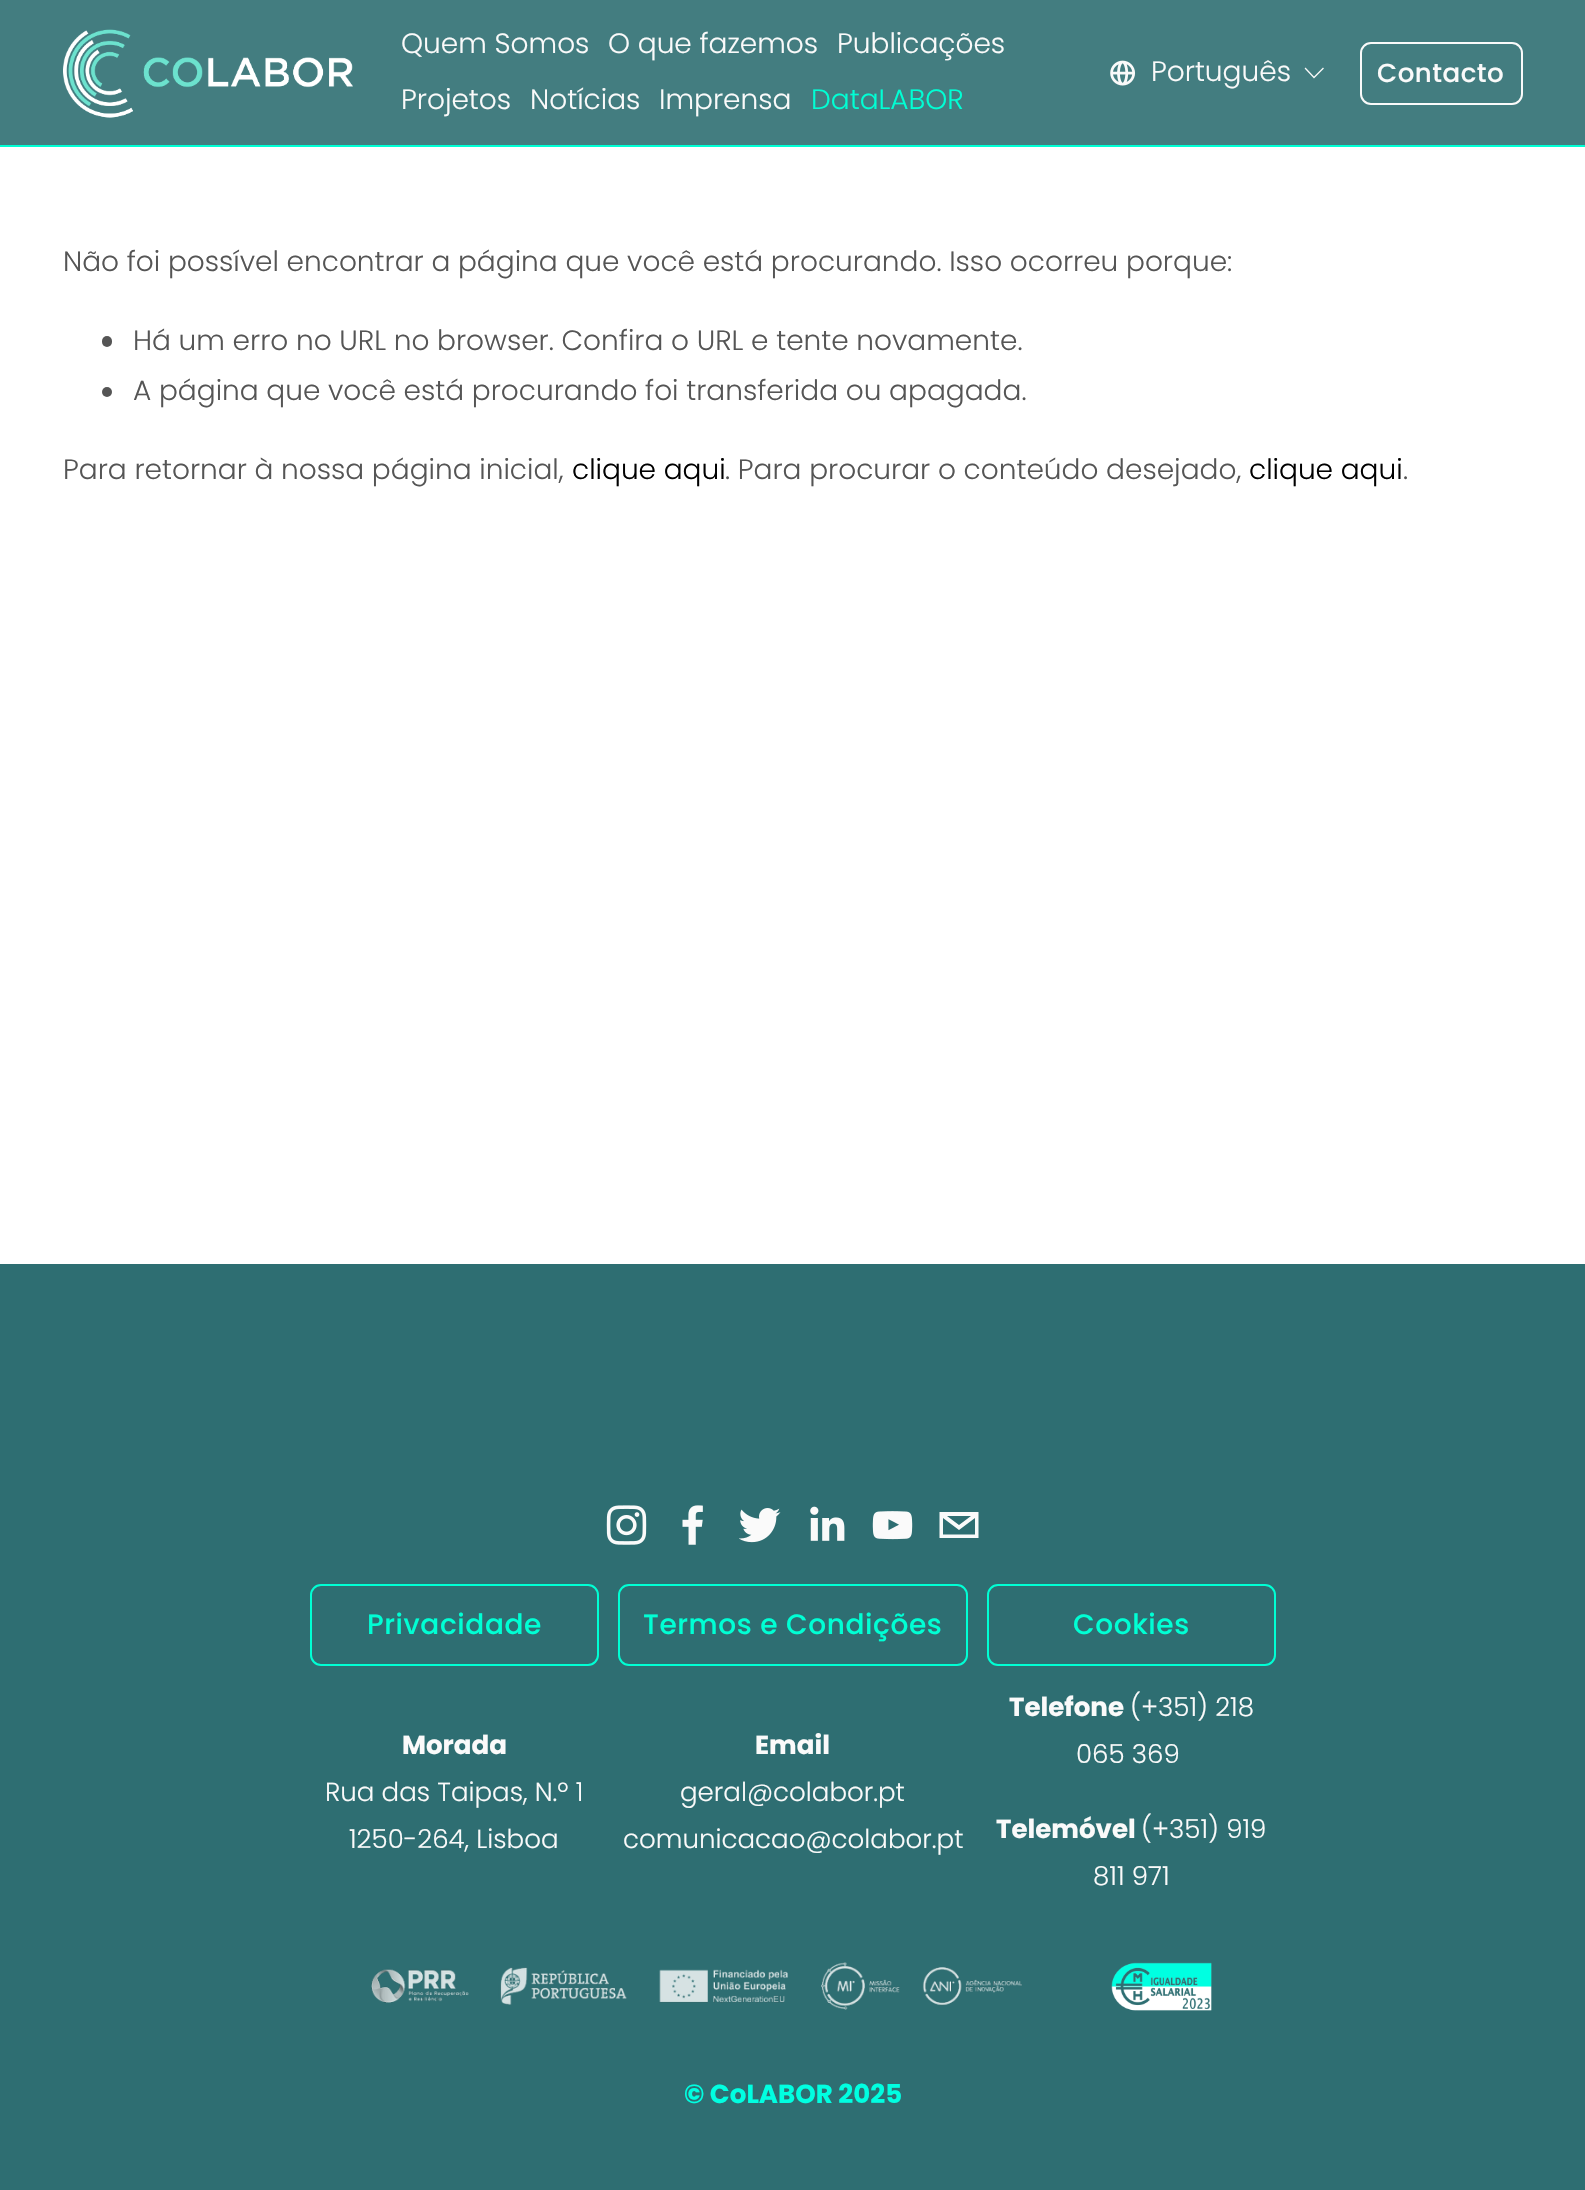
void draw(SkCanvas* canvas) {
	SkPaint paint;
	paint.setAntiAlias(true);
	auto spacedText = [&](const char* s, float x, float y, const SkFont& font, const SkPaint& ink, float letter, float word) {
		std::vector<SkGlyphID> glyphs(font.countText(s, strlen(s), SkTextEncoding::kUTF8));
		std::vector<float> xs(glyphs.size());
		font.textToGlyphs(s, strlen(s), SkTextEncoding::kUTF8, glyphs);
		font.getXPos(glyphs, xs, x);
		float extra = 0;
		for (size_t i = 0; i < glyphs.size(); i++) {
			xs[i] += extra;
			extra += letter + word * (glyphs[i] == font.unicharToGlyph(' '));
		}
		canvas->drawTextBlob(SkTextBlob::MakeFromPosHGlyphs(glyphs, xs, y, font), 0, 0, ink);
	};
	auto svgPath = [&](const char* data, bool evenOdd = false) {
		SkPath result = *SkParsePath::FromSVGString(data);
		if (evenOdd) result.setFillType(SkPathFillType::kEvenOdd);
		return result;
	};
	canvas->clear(0xffffffff);
	paint.setColor(0xff437d80);
	canvas->drawRect(SkRect::MakeXYWH(0, 0, 1585, 145), paint);
	canvas->drawImageRect(SkImages::DeferredFromEncodedData(SkData::MakeFromFileName("img1.png")), SkRect::MakeXYWH(63, 29, 290, 89), SkSamplingOptions());
	SkFont f1(fontMgr->matchFamilyStyle("Poppins", SkFontStyle(300, SkFontStyle::kNormal_Width, SkFontStyle::kUpright_Slant)), 28);
	f1.setSubpixel(true);
	paint.setColor(0xfffafafa);
	canvas->drawString("Quem Somos", 401, 53, f1, paint);
	canvas->drawString("O que fazemos", 608, 53, f1, paint);
	canvas->drawString("Publicações", 837, 53, f1, paint);
	canvas->drawString("Projetos", 401, 109, f1, paint);
	canvas->drawString("Notícias", 530, 109, f1, paint);
	canvas->drawString("Imprensa", 659, 109, f1, paint);
	paint.setColor(0xff00ffd4);
	canvas->drawString("DataLABOR", 811, 109, f1, paint);
	canvas->drawImageRect(SkImages::DeferredFromEncodedData(SkData::MakeFromFileName("img2.png")), SkRect::MakeXYWH(1110, 60, 26, 26), SkSamplingOptions());
	paint.setColor(0xfffafafa);
	canvas->drawString("Português", 1151, 81, f1, paint);
	paint.setStroke(true);
	paint.setStrokeWidth(1.3);
	paint.setStrokeCap(SkPaint::kSquare_Cap);
	canvas->drawPath(svgPath("M1323 68.5L1314 77.5L1305.5 68.5"), paint);
	paint.setStrokeWidth(2);
	paint.setStrokeCap(SkPaint::kButt_Cap);
	canvas->drawRoundRect(SkRect::MakeXYWH(1361, 43, 161, 61), 10, 10, paint);
	SkFont f2(fontMgr->matchFamilyStyle("Poppins", SkFontStyle(500, SkFontStyle::kNormal_Width, SkFontStyle::kUpright_Slant)), 26.1);
	f2.setSubpixel(true);
	paint.setStroke(false);
	spacedText("Contacto", 1377, 82, f2, paint, 0.5, 0);
	paint.setColor(0xff00ffd4);
	canvas->drawRect(SkRect::MakeXYWH(0, 145, 1585, 2), paint);
	paint.setColor(0xff555555);
	canvas->drawString("Não foi possível encontrar a página que você está procurando. Isso ocorreu porque:", 63, 271, f1, paint);
	canvas->drawRoundRect(SkRect::MakeXYWH(102, 336, 10, 11), 5, 5, paint);
	canvas->drawString("Há um erro no URL no browser. Confira o URL e tente novamente.", 133, 350, f1, paint);
	canvas->drawCircle(107, 392, 5, paint);
	canvas->drawString("A página que você está procurando foi transferida ou apagada.", 133, 400, f1, paint);
	canvas->drawString("Para retornar à nossa página inicial,", 63, 479, f1, paint);
	paint.setColor(0xff000000);
	canvas->drawString("clique aqui", 572, 479, f1, paint);
	paint.setColor(0xff555555);
	canvas->drawString(". Para procurar o conteúdo desejado,", 725, 479, f1, paint);
	paint.setColor(0xff000000);
	canvas->drawString("clique aqui", 1249, 479, f1, paint);
	paint.setColor(0xff555555);
	canvas->drawString(".", 1403, 479, f1, paint);
	paint.setColor(0xff2e6e72);
	canvas->drawRect(SkRect::MakeXYWH(0, 1264, 1585, 926), paint);
	canvas->drawImageRect(SkImages::DeferredFromEncodedData(SkData::MakeFromFileName("img3.png")), SkRect::MakeXYWH(606, 1505, 41, 40), SkSamplingOptions());
	canvas->drawImageRect(SkImages::DeferredFromEncodedData(SkData::MakeFromFileName("img4.png")), SkRect::MakeXYWH(682, 1505, 21, 40), SkSamplingOptions());
	canvas->drawImageRect(SkImages::DeferredFromEncodedData(SkData::MakeFromFileName("img5.png")), SkRect::MakeXYWH(739, 1508, 42, 35), SkSamplingOptions());
	canvas->drawImageRect(SkImages::DeferredFromEncodedData(SkData::MakeFromFileName("img6.png")), SkRect::MakeXYWH(810, 1506, 35, 35), SkSamplingOptions());
	canvas->drawImageRect(SkImages::DeferredFromEncodedData(SkData::MakeFromFileName("img7.png")), SkRect::MakeXYWH(872, 1511, 41, 29), SkSamplingOptions());
	paint.setColor(0xfffafafa);
	canvas->drawPath(svgPath("M939.5 1512V1538H978.5V1512ZM971 1516L959 1525L947 1516ZM943 1534.5V1518L959 1530L975 1518V1534.5Z"), paint);
	paint.setStroke(true);
	paint.setColor(0xff00ffd4);
	canvas->drawRoundRect(SkRect::MakeXYWH(311, 1585, 287, 80), 10, 10, paint);
	SkFont f3(fontMgr->matchFamilyStyle("Poppins", SkFontStyle(500, SkFontStyle::kNormal_Width, SkFontStyle::kUpright_Slant)), 28);
	f3.setSubpixel(true);
	paint.setStroke(false);
	spacedText("Privacidade", 367, 1634, f3, paint, 0.6, 0);
	paint.setStroke(true);
	canvas->drawRoundRect(SkRect::MakeXYWH(619, 1585, 348, 80), 10, 10, paint);
	paint.setStroke(false);
	spacedText("Termos e Condições", 643, 1634, f3, paint, 0.6, 0);
	paint.setStroke(true);
	canvas->drawRoundRect(SkRect::MakeXYWH(988, 1585, 287, 80), 10, 10, paint);
	paint.setStroke(false);
	spacedText("Cookies", 1073, 1634, f3, paint, 0.6, 0);
	SkFont f4(fontMgr->matchFamilyStyle("Poppins", SkFontStyle::Bold()), 26.1);
	f4.setSubpixel(true);
	paint.setColor(0xfffafafa);
	canvas->drawString("Morada", 402, 1754, f4, paint);
	SkFont f5(fontMgr->matchFamilyStyle("Poppins", SkFontStyle(300, SkFontStyle::kNormal_Width, SkFontStyle::kUpright_Slant)), 26.1);
	f5.setSubpixel(true);
	canvas->drawString("Rua das Taipas, N.º 1", 325, 1801, f5, paint);
	canvas->drawString("1250-264, Lisboa", 349, 1848, f5, paint);
	canvas->drawString("Email", 755, 1754, f4, paint);
	canvas->drawString("geral@colabor.pt", 680, 1801, f5, paint);
	canvas->drawString("comunicacao@colabor.pt", 623, 1848, f5, paint);
	canvas->drawString("Telefone", 1009, 1716, f4, paint);
	canvas->drawString("(+351) 218", 1130, 1716, f5, paint);
	canvas->drawString("065 369", 1076, 1763, f5, paint);
	canvas->drawString("Telemóvel", 996, 1838, f4, paint);
	canvas->drawString("(+351) 919", 1141, 1838, f5, paint);
	canvas->drawString("811 971", 1093, 1885, f5, paint);
	canvas->drawImageRect(SkImages::DeferredFromEncodedData(SkData::MakeFromFileName("img8.png")), SkRect::MakeXYWH(371, 1962, 651, 48), SkSamplingOptions());
	canvas->drawImageRect(SkImages::DeferredFromEncodedData(SkData::MakeFromFileName("img9.png")), SkRect::MakeXYWH(1111, 1962, 101, 49), SkSamplingOptions());
	paint.setColor(0xff00ffe1);
	canvas->drawString("© CoLABOR 2025", 684, 2103, f4, paint);
}
